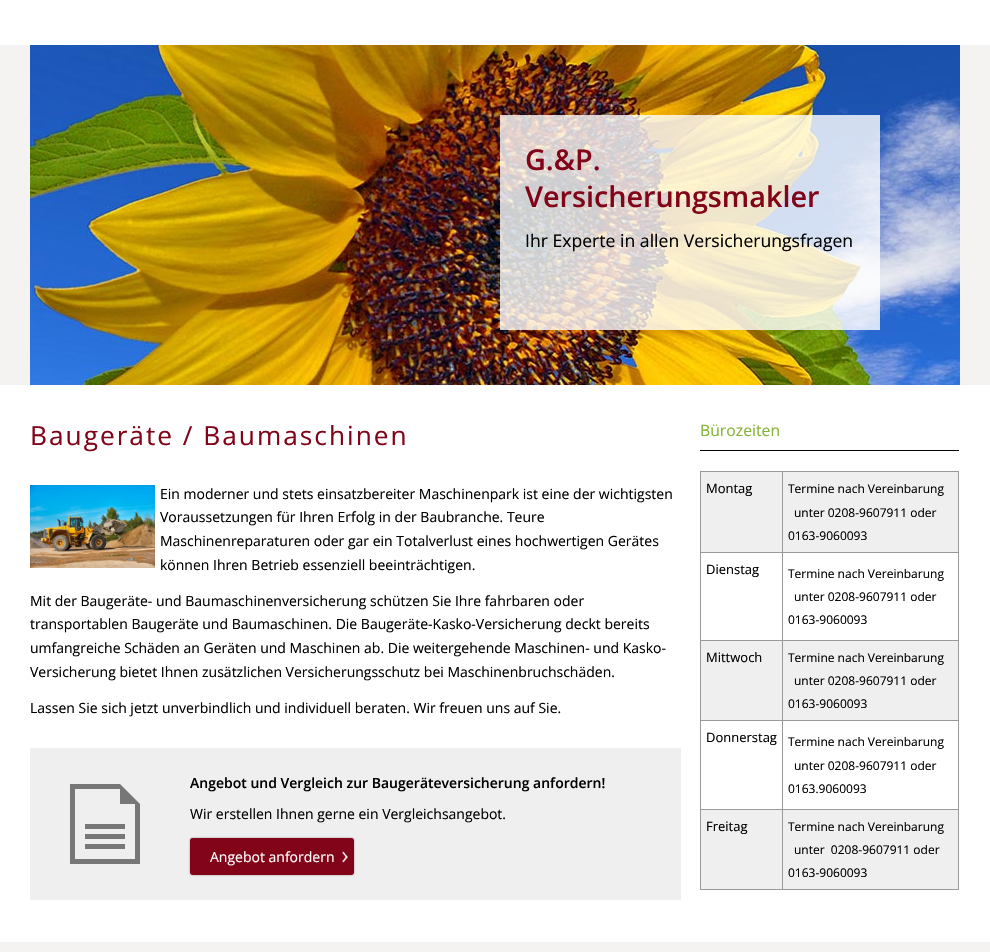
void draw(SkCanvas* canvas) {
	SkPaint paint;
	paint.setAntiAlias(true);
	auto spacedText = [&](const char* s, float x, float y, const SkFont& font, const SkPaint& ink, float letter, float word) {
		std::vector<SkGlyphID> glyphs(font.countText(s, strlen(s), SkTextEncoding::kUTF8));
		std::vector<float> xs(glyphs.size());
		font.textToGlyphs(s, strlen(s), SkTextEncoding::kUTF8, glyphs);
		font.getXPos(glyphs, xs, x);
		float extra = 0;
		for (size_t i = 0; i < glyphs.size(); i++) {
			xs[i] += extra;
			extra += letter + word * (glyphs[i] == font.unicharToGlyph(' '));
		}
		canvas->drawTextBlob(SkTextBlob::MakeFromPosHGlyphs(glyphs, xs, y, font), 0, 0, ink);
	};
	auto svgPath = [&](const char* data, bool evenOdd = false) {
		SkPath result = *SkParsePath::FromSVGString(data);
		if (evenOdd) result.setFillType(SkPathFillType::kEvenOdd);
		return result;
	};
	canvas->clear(0xffffffff);
	paint.setColor(0xfff4f3f1);
	canvas->drawRect(SkRect::MakeXYWH(0, 942, 990, 10), paint);
	canvas->drawRect(SkRect::MakeXYWH(0, 45, 990, 340), paint);
	canvas->drawImageRect(SkImages::DeferredFromEncodedData(SkData::MakeFromFileName("img1.png")), SkRect::MakeXYWH(30, 45, 930, 340), SkSamplingOptions());
	paint.setColor(0xccffffff);
	canvas->drawRect(SkRect::MakeXYWH(500, 115, 380, 215), paint);
	SkFont f1(fontMgr->matchFamilyStyle("Open Sans", SkFontStyle(600, SkFontStyle::kNormal_Width, SkFontStyle::kUpright_Slant)), 28.75);
	f1.setSubpixel(true);
	paint.setColor(0xff820419);
	canvas->drawString("G.&P.", 525, 170, f1, paint);
	canvas->drawString("Versicherungsmakler", 525, 207, f1, paint);
	SkFont f2(fontMgr->matchFamilyStyle("Open Sans", SkFontStyle::Normal()), 17.6);
	f2.setSubpixel(true);
	paint.setColor(0xff000000);
	canvas->drawString("Ihr Experte in allen Versicherungsfragen", 525, 247, f2, paint);
	SkFont f3(fontMgr->matchFamilyStyle("Open Sans", SkFontStyle::Normal()), 26.25);
	f3.setSubpixel(true);
	paint.setColor(0xff820419);
	spacedText("Baugeräte / Baumaschinen", 30, 445, f3, paint, 2, 0);
	canvas->drawImageRect(SkImages::DeferredFromEncodedData(SkData::MakeFromFileName("img2.png")), SkRect::MakeXYWH(30, 485, 125, 83), SkSamplingOptions());
	SkFont f4(fontMgr->matchFamilyStyle("Open Sans", SkFontStyle::Normal()), 14);
	f4.setSubpixel(true);
	paint.setColor(0xff000000);
	canvas->drawString("Ein moderner und stets einsatzbereiter Maschinenpark ist eine der wichtigsten", 160, 499, f4, paint);
	canvas->drawString("Voraussetzungen für Ihren Erfolg in der Baubranche. Teure", 160, 522, f4, paint);
	canvas->drawString("Maschinenreparaturen oder gar ein Totalverlust eines hochwertigen Gerätes", 160, 546, f4, paint);
	canvas->drawString("können Ihren Betrieb essenziell beeinträchtigen.", 160, 570, f4, paint);
	canvas->drawString("Mit der Baugeräte- und Baumaschinenversicherung schützen Sie Ihre fahrbaren oder", 30, 606, f4, paint);
	canvas->drawString("transportablen Baugeräte und Baumaschinen. Die Baugeräte-Kasko-Versicherung deckt bereits", 30, 629, f4, paint);
	canvas->drawString("umfangreiche Schäden an Geräten und Maschinen ab. Die weitergehende Maschinen- und Kasko-", 30, 653, f4, paint);
	canvas->drawString("Versicherung bietet Ihnen zusätzlichen Versicherungsschutz bei Maschinenbruchschäden.", 30, 677, f4, paint);
	canvas->drawString("Lassen Sie sich jetzt unverbindlich und individuell beraten. Wir freuen uns auf Sie.", 30, 713, f4, paint);
	canvas->drawRect(SkRect::MakeXYWH(700, 450, 259, 1), paint);
	SkFont f5(fontMgr->matchFamilyStyle("Open Sans", SkFontStyle::Normal()), 15.75);
	f5.setSubpixel(true);
	paint.setColor(0xff86b337);
	canvas->drawString("Bürozeiten", 700, 436, f5, paint);
	paint.setColor(0xffefefef);
	canvas->drawRect(SkRect::MakeXYWH(701, 472, 81, 80), paint);
	paint.setColor(0xff999999);
	canvas->drawRect(SkRect::MakeXYWH(782, 471, 177, 1), paint);
	canvas->drawRect(SkRect::MakeXYWH(782, 552, 177, 1), paint);
	canvas->drawRect(SkRect::MakeXYWH(782, 640, 177, 1), paint);
	canvas->drawRect(SkRect::MakeXYWH(782, 720, 177, 1), paint);
	canvas->drawRect(SkRect::MakeXYWH(782, 809, 177, 1), paint);
	canvas->drawRect(SkRect::MakeXYWH(958, 809, 1, 81), paint);
	canvas->drawRect(SkRect::MakeXYWH(782, 889, 177, 1), paint);
	canvas->drawRect(SkRect::MakeXYWH(782, 809, 1, 81), paint);
	canvas->drawRect(SkRect::MakeXYWH(700, 809, 83, 1), paint);
	canvas->drawRect(SkRect::MakeXYWH(782, 720, 1, 90), paint);
	canvas->drawRect(SkRect::MakeXYWH(700, 720, 83, 1), paint);
	canvas->drawRect(SkRect::MakeXYWH(782, 640, 1, 81), paint);
	canvas->drawRect(SkRect::MakeXYWH(700, 640, 83, 1), paint);
	canvas->drawRect(SkRect::MakeXYWH(782, 552, 1, 89), paint);
	canvas->drawRect(SkRect::MakeXYWH(700, 552, 83, 1), paint);
	canvas->drawRect(SkRect::MakeXYWH(782, 471, 1, 82), paint);
	canvas->drawRect(SkRect::MakeXYWH(700, 471, 83, 1), paint);
	canvas->drawRect(SkRect::MakeXYWH(700, 889, 83, 1), paint);
	canvas->drawRect(SkRect::MakeXYWH(700, 809, 1, 81), paint);
	canvas->drawRect(SkRect::MakeXYWH(700, 720, 1, 90), paint);
	canvas->drawRect(SkRect::MakeXYWH(700, 640, 1, 81), paint);
	canvas->drawRect(SkRect::MakeXYWH(700, 552, 1, 89), paint);
	canvas->drawRect(SkRect::MakeXYWH(700, 471, 1, 82), paint);
	SkFont f6(fontMgr->matchFamilyStyle("Open Sans", SkFontStyle::Normal()), 13);
	f6.setSubpixel(true);
	paint.setColor(0xff000000);
	canvas->drawString("Montag", 706, 493, f6, paint);
	paint.setColor(0xffefefef);
	canvas->drawRect(SkRect::MakeXYWH(783, 472, 175, 80), paint);
	paint.setColor(0xff999999);
	canvas->drawRect(SkRect::MakeXYWH(958, 720, 1, 90), paint);
	canvas->drawRect(SkRect::MakeXYWH(958, 640, 1, 81), paint);
	canvas->drawRect(SkRect::MakeXYWH(958, 552, 1, 89), paint);
	canvas->drawRect(SkRect::MakeXYWH(958, 471, 1, 82), paint);
	SkFont f7(fontMgr->matchFamilyStyle("Open Sans", SkFontStyle::Normal()), 12);
	f7.setSubpixel(true);
	paint.setColor(0xff000000);
	canvas->drawString("Termine nach Vereinbarung", 788, 493, f7, paint);
	canvas->drawString("unter 0208-9607911 oder", 794, 517, f7, paint);
	canvas->drawString("0163-9060093", 788, 540, f7, paint);
	canvas->drawString("Dienstag", 706, 574, f6, paint);
	canvas->drawString("Termine nach Vereinbarung", 788, 578, f7, paint);
	canvas->drawString("unter 0208-9607911 oder", 794, 601, f7, paint);
	canvas->drawString("0163-9060093", 788, 624, f7, paint);
	paint.setColor(0xffefefef);
	canvas->drawRect(SkRect::MakeXYWH(701, 641, 81, 79), paint);
	paint.setColor(0xff000000);
	canvas->drawString("Mittwoch", 706, 662, f6, paint);
	paint.setColor(0xffefefef);
	canvas->drawRect(SkRect::MakeXYWH(783, 641, 175, 79), paint);
	paint.setColor(0xff000000);
	canvas->drawString("Termine nach Vereinbarung", 788, 662, f7, paint);
	canvas->drawString("unter 0208-9607911 oder", 794, 685, f7, paint);
	canvas->drawString("0163-9060093", 788, 708, f7, paint);
	canvas->drawString("Donnerstag", 706, 742, f6, paint);
	canvas->drawString("Termine nach Vereinbarung", 788, 746, f7, paint);
	canvas->drawString("unter 0208-9607911 oder", 794, 770, f7, paint);
	canvas->drawString("0163.9060093", 788, 793, f7, paint);
	paint.setColor(0xffefefef);
	canvas->drawRect(SkRect::MakeXYWH(701, 810, 81, 79), paint);
	paint.setColor(0xff000000);
	canvas->drawString("Freitag", 706, 831, f6, paint);
	paint.setColor(0xffefefef);
	canvas->drawRect(SkRect::MakeXYWH(783, 810, 175, 79), paint);
	paint.setColor(0xff000000);
	canvas->drawString("Termine nach Vereinbarung", 788, 831, f7, paint);
	canvas->drawString("unter  0208-9607911 oder", 794, 854, f7, paint);
	canvas->drawString("0163-9060093", 788, 877, f7, paint);
	paint.setColor(0xffefefef);
	canvas->drawRect(SkRect::MakeXYWH(30, 748, 651, 152), paint);
	paint.setColor(0xff777777);
	canvas->drawPath(svgPath("M120 784H70V864H140V804ZM135 859H75V789H120V804H135ZM85 844H125V849H85ZM85 834H125V839H85ZM85 824H125V829H85Z"), paint);
	SkFont f8(fontMgr->matchFamilyStyle("Open Sans", SkFontStyle(600, SkFontStyle::kNormal_Width, SkFontStyle::kUpright_Slant)), 14);
	f8.setSubpixel(true);
	paint.setColor(0xff000000);
	canvas->drawString("Angebot und Vergleich zur Baugeräteversicherung anfordern!", 190, 788, f8, paint);
	canvas->drawString("Wir erstellen Ihnen gerne ein Vergleichsangebot.", 190, 819, f4, paint);
	paint.setColor(0xff888888);
	paint.setMaskFilter(SkMaskFilter::MakeBlur(kNormal_SkBlurStyle, 1));
	canvas->drawRoundRect(SkRect::MakeXYWH(190, 838, 164, 37), 3, 3, paint);
	paint.setMaskFilter(nullptr);
	paint.setColor(0xff820419);
	canvas->drawRoundRect(SkRect::MakeXYWH(190, 838, 164, 37), 3, 3, paint);
	canvas->drawImageRect(SkImages::DeferredFromEncodedData(SkData::MakeFromFileName("img3.png")), SkRect::MakeXYWH(342, 851, 6, 12), SkSamplingOptions());
	paint.setColor(0xffffffff);
	canvas->drawString("Angebot anfordern", 210, 862, f4, paint);
}
